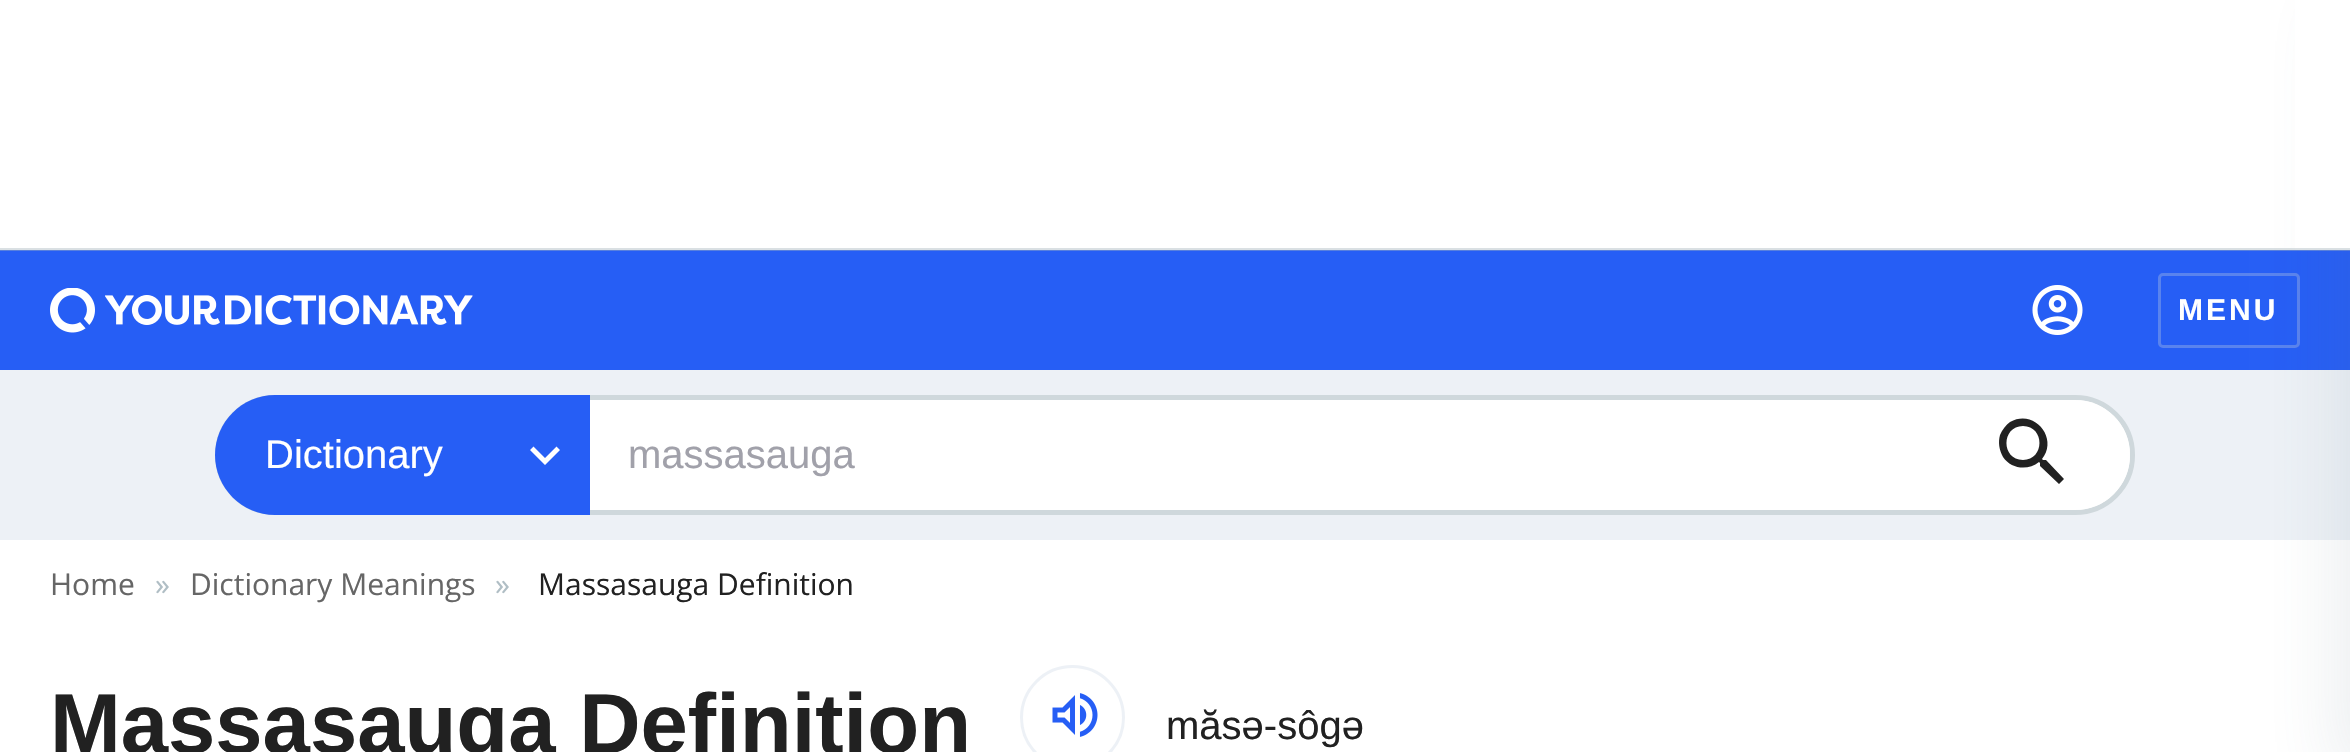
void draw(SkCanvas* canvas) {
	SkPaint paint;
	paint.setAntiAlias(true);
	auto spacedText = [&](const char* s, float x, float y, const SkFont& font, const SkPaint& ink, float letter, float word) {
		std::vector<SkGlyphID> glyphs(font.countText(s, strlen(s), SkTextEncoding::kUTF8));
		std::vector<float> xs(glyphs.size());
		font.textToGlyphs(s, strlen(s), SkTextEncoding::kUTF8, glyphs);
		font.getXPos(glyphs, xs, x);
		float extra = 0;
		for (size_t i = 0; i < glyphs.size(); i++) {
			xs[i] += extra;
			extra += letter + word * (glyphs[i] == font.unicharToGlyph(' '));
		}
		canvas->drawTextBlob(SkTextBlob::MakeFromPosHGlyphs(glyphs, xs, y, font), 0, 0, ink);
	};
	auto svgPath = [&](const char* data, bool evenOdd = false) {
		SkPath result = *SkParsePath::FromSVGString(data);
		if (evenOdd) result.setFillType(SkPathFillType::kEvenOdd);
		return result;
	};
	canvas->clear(0xffffffff);
	paint.setColor(0xff265ef5);
	canvas->drawRect(SkRect::MakeXYWH(0, 250, 2350, 120), paint);
	paint.setStroke(true);
	paint.setStrokeWidth(3);
	paint.setColor(0xff5983ee);
	canvas->drawRoundRect(SkRect::MakeXYWH(2159.5, 274.5, 139, 72), 3.5, 3.5, paint);
	paint.setStroke(false);
	paint.setColor(0xffedf1f6);
	canvas->drawRect(SkRect::MakeXYWH(0, 370, 2350, 170), paint);
	paint.setColor(0x1f546e7a);
	paint.setMaskFilter(SkMaskFilter::MakeBlur(kNormal_SkBlurStyle, 37.5));
	canvas->drawRect(SkRect::MakeXYWH(2338, 3, 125, 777), paint);
	paint.setMaskFilter(nullptr);
	paint.setColor(0xffffffff);
	canvas->drawRect(SkRect::MakeXYWH(2295, 0, 55, 250), paint);
	paint.setColor(0x66a3b2ba);
	canvas->drawRect(SkRect::MakeXYWH(0, 248, 2350, 3), paint);
	canvas->drawImageRect(SkImages::DeferredFromEncodedData(SkData::MakeFromFileName("img1.png")), SkRect::MakeXYWH(50, 288, 423, 45), SkSamplingOptions());
	canvas->drawImageRect(SkImages::DeferredFromEncodedData(SkData::MakeFromFileName("img2.png")), SkRect::MakeXYWH(2032, 285, 51, 50), SkSamplingOptions());
	SkFont f1(fontMgr->matchFamilyStyle("Liberation Sans", SkFontStyle::Bold()), 30);
	f1.setSubpixel(true);
	paint.setColor(0xffffffff);
	spacedText("MENU", 2178, 320, f1, paint, 3, 0);
	canvas->drawRoundRect(SkRect::MakeXYWH(217.5, 397.5, 1915, 115), 57.5, 57.5, paint);
	paint.setStroke(true);
	paint.setStrokeWidth(5);
	paint.setColor(0xffcfd8dc);
	canvas->drawRoundRect(SkRect::MakeXYWH(217.5, 397.5, 1915, 115), 57.5, 57.5, paint);
	paint.setStroke(false);
	paint.setColor(0xff265ef5);
	canvas->drawPath(svgPath("M275 395H590V515H275C242 515 215 488 215 455C215 422 242 395 275 395Z"), paint);
	SkFont f2(fontMgr->matchFamilyStyle("Liberation Sans", SkFontStyle::Normal()), 40);
	f2.setSubpixel(true);
	paint.setColor(0xffffffff);
	canvas->drawString("Dictionary", 265, 468, f2, paint);
	canvas->drawPath(svgPath("M556.5 446.5L545 458L533.5 446.5L530 450L545 465L560 450Z"), paint);
	paint.setColor(0xffa1a1aa);
	canvas->drawString("massasauga", 628, 468, f2, paint);
	paint.setColor(0xffffffff);
	canvas->drawRoundRect(SkRect::MakeXYWH(1980, 400, 150, 110), 55, 55, paint);
	paint.setColor(0xff212121);
	canvas->drawPath(svgPath("M2046 460H2043L2042 459C2059 438 2034 408 2010 422C2006 425 2002 430 2000 435C1998 442 1999 450 2003 457C2011 469 2028 471 2039 462L2040 463V466L2059 484L2064 479ZM2023 460C2001 460 2001 426 2023 426C2045 426 2045 460 2023 460Z"), paint);
	SkFont f3(fontMgr->matchFamilyStyle("Open Sans", SkFontStyle::Normal()), 30);
	f3.setSubpixel(true);
	paint.setColor(0xff666666);
	canvas->drawString("Home", 50, 595, f3, paint);
	paint.setColor(0xffb0bec5);
	canvas->drawString("»", 155, 595, f3, paint);
	paint.setColor(0xff666666);
	canvas->drawString("Dictionary Meanings", 190, 595, f3, paint);
	paint.setColor(0xffb0bec5);
	canvas->drawString("»", 495, 595, f3, paint);
	paint.setColor(0xff212121);
	canvas->drawString("Massasauga Definition", 538, 595, f3, paint);
	SkFont f4(fontMgr->matchFamilyStyle("Liberation Sans", SkFontStyle::Bold()), 85);
	f4.setSubpixel(true);
	canvas->drawString("Massasauga Definition", 50, 753, f4, paint);
	paint.setStroke(true);
	paint.setStrokeWidth(3);
	paint.setColor(0xffedf1f6);
	canvas->drawCircle(1072.5, 717.5, 51, paint);
	canvas->drawImageRect(SkImages::DeferredFromEncodedData(SkData::MakeFromFileName("img3.png")), SkRect::MakeXYWH(1052, 693, 46, 44), SkSamplingOptions());
	paint.setStroke(false);
	paint.setColor(0xff212121);
	canvas->drawString("măsə-sôgə", 1166, 739, f2, paint);
}
